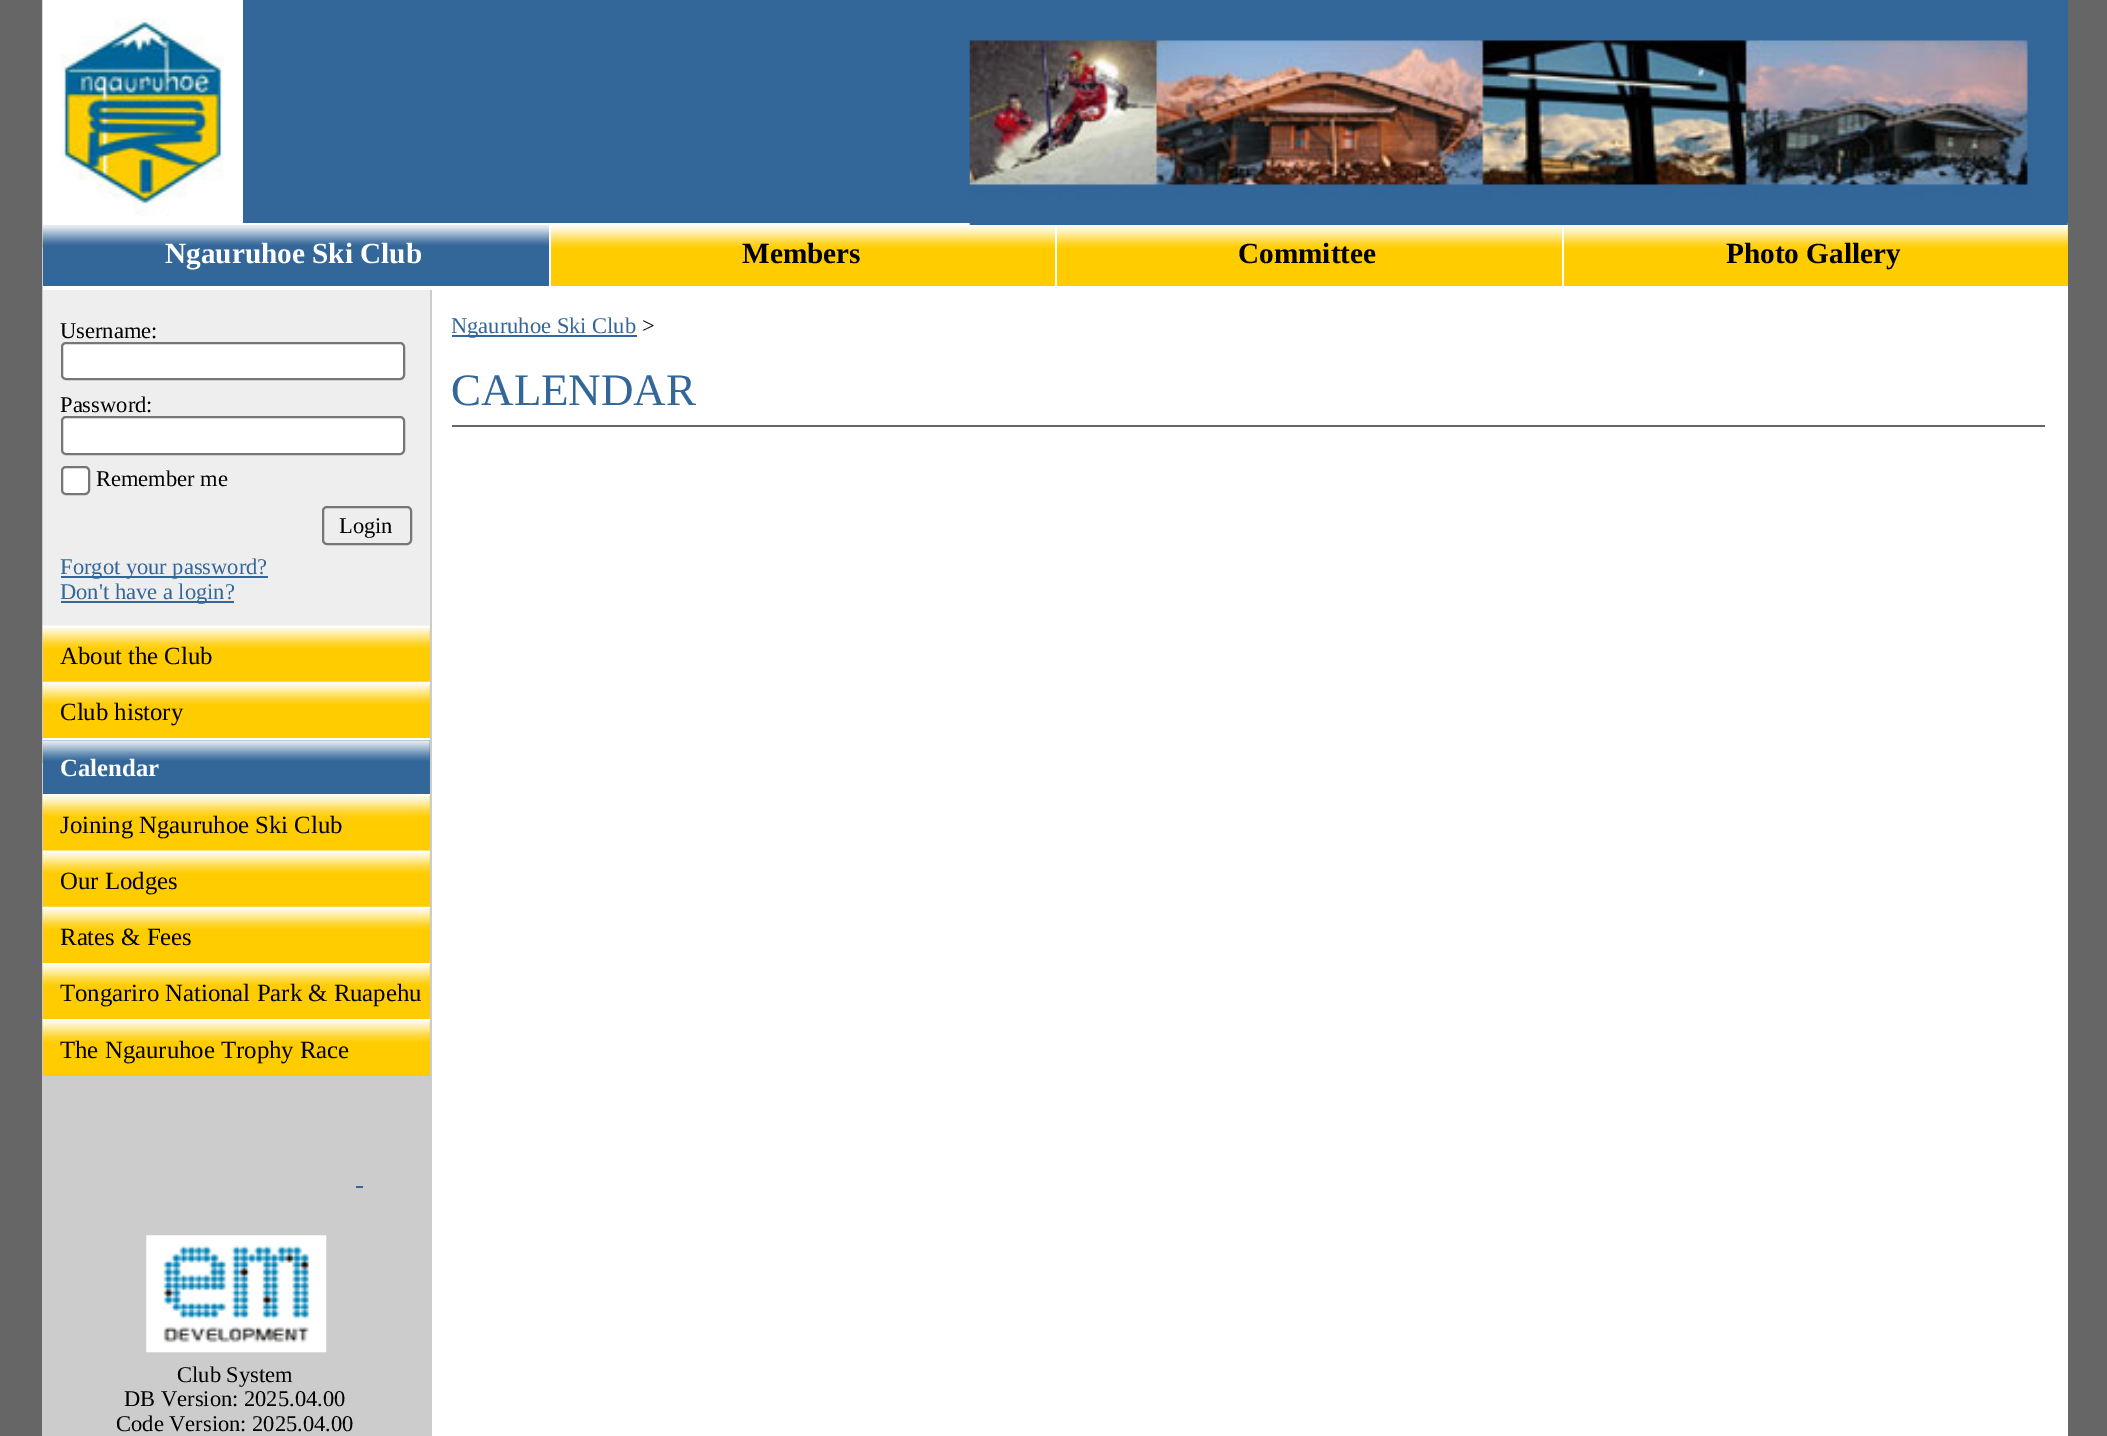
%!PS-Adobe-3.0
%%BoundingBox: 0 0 2107 1436
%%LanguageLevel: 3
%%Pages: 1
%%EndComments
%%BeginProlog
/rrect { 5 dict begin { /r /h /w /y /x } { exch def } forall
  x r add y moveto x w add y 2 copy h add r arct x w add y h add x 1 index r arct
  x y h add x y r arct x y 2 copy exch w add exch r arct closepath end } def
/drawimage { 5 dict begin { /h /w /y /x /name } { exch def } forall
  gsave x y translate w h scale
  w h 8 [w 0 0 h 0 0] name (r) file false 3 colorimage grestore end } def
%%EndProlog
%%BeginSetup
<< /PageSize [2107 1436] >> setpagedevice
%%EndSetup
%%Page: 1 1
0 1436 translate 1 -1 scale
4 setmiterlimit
0.4 setgray
0 0 2107 1436 rectfill
1 setgray
432 290 1636 1146 rectfill
0.8 setgray
42 0 390 1436 rectfill
0.2 0.4 0.6 setrgbcolor
243 0 1825 223 rectfill
1 setgray
243 223 1825 2 rectfill
(images/1.raw) 42 0 201 225 drawimage
(images/2.raw) 969 40 1099 185 drawimage
1 0.8 0 setrgbcolor
551 225 1517 61 rectfill
(images/3.raw) 42 225 2026 23 drawimage
1 setgray
43 288 2025 2 rectfill
43 286 2025 2 rectfill
0.2 0.4 0.6 setrgbcolor
43 247 506 39 rectfill
(images/4.raw) 42 225 507 23 drawimage
1 setgray
549 225 2 63 rectfill
1055 225 2 63 rectfill
1562 225 2 63 rectfill
0.933 setgray
43 290 387 336 rectfill
1 setgray
62 343 342 36 4 rrect gsave fill grestore
0.463 setgray
2 setlinewidth
stroke
1 setgray
62 417 342 37 4 rrect gsave fill grestore
0.463 setgray
stroke
1 setgray
62 467 27 27 4 rrect gsave fill grestore
0.463 setgray
stroke
323 507 88 37 4 rrect stroke
0.2 0.4 0.6 setrgbcolor
61 576 207 2 rectfill
61 601 173 2 rectfill
1 0.8 0 setrgbcolor
43 628 387 54 rectfill
(images/5.raw) 42 625 388 23 drawimage
1 setgray
43 626 387 2 rectfill
1 0.8 0 setrgbcolor
43 684 387 54 rectfill
(images/6.raw) 42 681 388 24 drawimage
1 setgray
43 682 387 2 rectfill
(images/7.raw) 42 738 1 23 drawimage
0.2 0.4 0.6 setrgbcolor
43 740 387 54 rectfill
(images/8.raw) 42 740 388 23 drawimage
1 setgray
43 738 387 2 rectfill
1 0.8 0 setrgbcolor
43 796 387 55 rectfill
(images/9.raw) 42 794 388 23 drawimage
1 setgray
43 794 387 2 rectfill
1 0.8 0 setrgbcolor
43 853 387 54 rectfill
(images/10.raw) 42 850 388 23 drawimage
1 setgray
43 851 387 2 rectfill
1 0.8 0 setrgbcolor
43 909 387 54 rectfill
(images/6.raw) 42 906 388 24 drawimage
1 setgray
43 907 387 2 rectfill
1 0.8 0 setrgbcolor
43 965 387 54 rectfill
(images/11.raw) 42 963 388 23 drawimage
1 setgray
43 963 387 2 rectfill
1 0.8 0 setrgbcolor
43 1021 387 55 rectfill
(images/9.raw) 42 1019 388 23 drawimage
1 setgray
43 1019 387 2 rectfill
0.2 0.4 0.6 setrgbcolor
356 1186 7 2 rectfill
(images/12.raw) 146 1235 181 118 drawimage
452 335 185 2 rectfill
0.4 setgray
452 425 1593 2 rectfill
/LiberationSerif-Bold [29.25 0 0 -29.25 0 0] selectfont
1 setgray
165 263 moveto (Ngauruhoe Ski Club) show
0 setgray
742 263 moveto (Members) show
1238 263 moveto (Committee) show
1726 263 moveto (Photo Gallery) show
/LiberationSerif-Regular [22.5 0 0 -22.5 0 0] selectfont
60 338 moveto (Username:) show
60 412 moveto (Password:) show
96 486 moveto (Remember me) show
339 533 moveto (Login) show
0.2 0.4 0.6 setrgbcolor
60 574 moveto (Forgot your password?) show
60 599 moveto (Don't have a login?) show
/LiberationSerif-Regular [24.75 0 0 -24.75 0 0] selectfont
0 setgray
60 664 moveto (About the Club) show
60 720 moveto (Club history) show
/LiberationSerif-Bold [24.75 0 0 -24.75 0 0] selectfont
1 setgray
60 776 moveto (Calendar) show
/LiberationSerif-Regular [24.75 0 0 -24.75 0 0] selectfont
0 setgray
60 833 moveto (Joining Ngauruhoe Ski Club) show
60 889 moveto (Our Lodges) show
60 945 moveto (Rates & Fees) show
60 1001 moveto (Tongariro National Park & Ruapehu) show
60 1058 moveto (The Ngauruhoe Trophy Race) show
/LiberationSerif-Regular [22.5 0 0 -22.5 0 0] selectfont
177 1382 moveto (Club System) show
124 1406 moveto (DB Version: 2025.04.00) show
116 1431 moveto (Code Version: 2025.04.00) show
0.2 0.4 0.6 setrgbcolor
451 333 moveto (Ngauruhoe Ski Club) show
0 setgray
642 333 moveto (>) show
/LiberationSerif-Regular [45 0 0 -45 0 0] selectfont
0.2 0.4 0.6 setrgbcolor
451 405 moveto (CALENDAR) show
showpage
%%EOF
